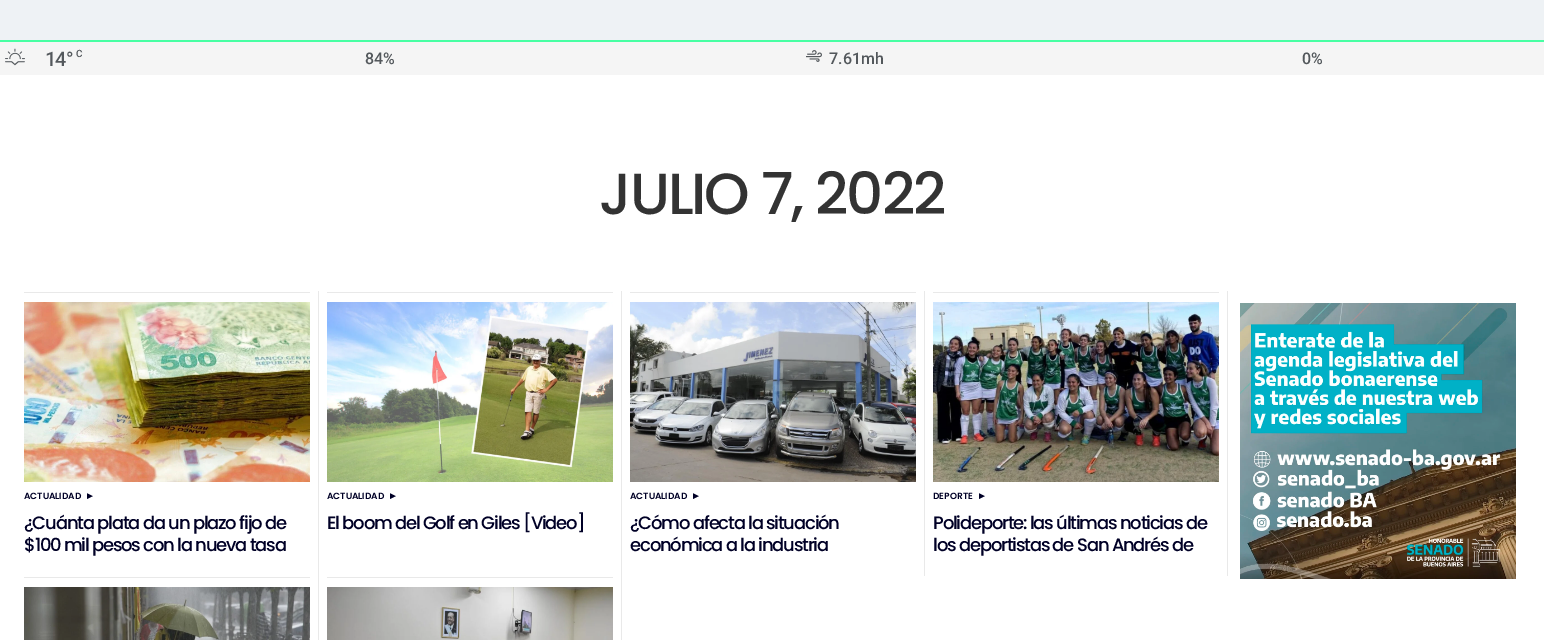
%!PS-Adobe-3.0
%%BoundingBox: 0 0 1544 640
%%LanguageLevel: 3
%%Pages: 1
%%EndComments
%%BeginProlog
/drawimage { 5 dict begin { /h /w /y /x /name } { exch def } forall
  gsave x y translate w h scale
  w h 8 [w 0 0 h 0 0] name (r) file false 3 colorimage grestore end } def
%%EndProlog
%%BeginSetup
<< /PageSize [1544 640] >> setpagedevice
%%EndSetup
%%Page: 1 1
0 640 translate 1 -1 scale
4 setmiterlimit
1 setgray
0 0 1544 640 rectfill
0.933 0.949 0.961 setrgbcolor
0 0 1544 40 rectfill
0.278 1 0.639 setrgbcolor
0 40 1544 2 rectfill
0.961 setgray
0 42 1544 33 rectfill
(images/1.raw) 5 48 20 18 drawimage
(images/2.raw) 806 50 16 12 drawimage
0.914 setgray
318 291 1 349 rectfill
24 292 286 1 rectfill
(images/3.raw) 24 302 286 180 drawimage
621 291 1 349 rectfill
327 292 286 1 rectfill
(images/4.raw) 327 302 286 180 drawimage
924 291 1 285 rectfill
630 292 286 1 rectfill
(images/5.raw) 630 302 286 180 drawimage
1227 291 1 285 rectfill
933 292 286 1 rectfill
(images/6.raw) 933 302 286 180 drawimage
24 577 286 1 rectfill
(images/7.raw) 24 587 286 53 drawimage
327 577 286 1 rectfill
(images/8.raw) 327 587 286 53 drawimage
(images/9.raw) 1240 303 276 276 drawimage
/Roboto-Medium [20 0 0 -20 0 0] selectfont
0.325 0.345 0.361 setrgbcolor
45 66 moveto -1 0 (14°) ashow
/Roboto-Medium [10 0 0 -10 0 0] selectfont
76 57 moveto -1 0 (C) ashow
/Roboto-Medium [16 0 0 -16 0 0] selectfont
365 64 moveto (84%) show
829 64 moveto (7.61mh) show
1302 64 moveto (0%) show
/Poppins-Medium [58 0 0 -58 0 0] selectfont
0.2 setgray
599 214 moveto -2.1 0 (JULIO 7, 2022) ashow
/Poppins-SemiBold [9 0 0 -9 0 0] selectfont
0 0 0.149 setrgbcolor
24 499 moveto (ACTUALIDAD) show
/LiberationSans-Regular [10 0 0 -10 0 0] selectfont
85 499 moveto (►) show
/Poppins-Medium [18 0 0 -18 0 0] selectfont
24 529 moveto -1.2 0 (¿Cuánta plata da un plazo fijo de) ashow
24 551 moveto -1.2 0 ($100 mil pesos con la nueva tasa) ashow
/Poppins-SemiBold [9 0 0 -9 0 0] selectfont
327 499 moveto (ACTUALIDAD) show
/LiberationSans-Regular [10 0 0 -10 0 0] selectfont
388 499 moveto (►) show
/Poppins-Medium [18 0 0 -18 0 0] selectfont
327 529 moveto -1.2 0 (El boom del Golf en Giles [Video]) ashow
/Poppins-SemiBold [9 0 0 -9 0 0] selectfont
630 499 moveto (ACTUALIDAD) show
/LiberationSans-Regular [10 0 0 -10 0 0] selectfont
691 499 moveto (►) show
/Poppins-Medium [18 0 0 -18 0 0] selectfont
630 529 moveto -1.2 0 (¿Cómo afecta la situación) ashow
630 551 moveto -1.2 0 (económica a la industria) ashow
/Poppins-SemiBold [9 0 0 -9 0 0] selectfont
933 499 moveto (DEPORTE) show
/LiberationSans-Regular [10 0 0 -10 0 0] selectfont
977 499 moveto (►) show
/Poppins-Medium [18 0 0 -18 0 0] selectfont
933 529 moveto -1.2 0 (Polideporte: las últimas noticias de) ashow
933 551 moveto -1.2 0 (los deportistas de San Andrés de) ashow
showpage
%%EOF
